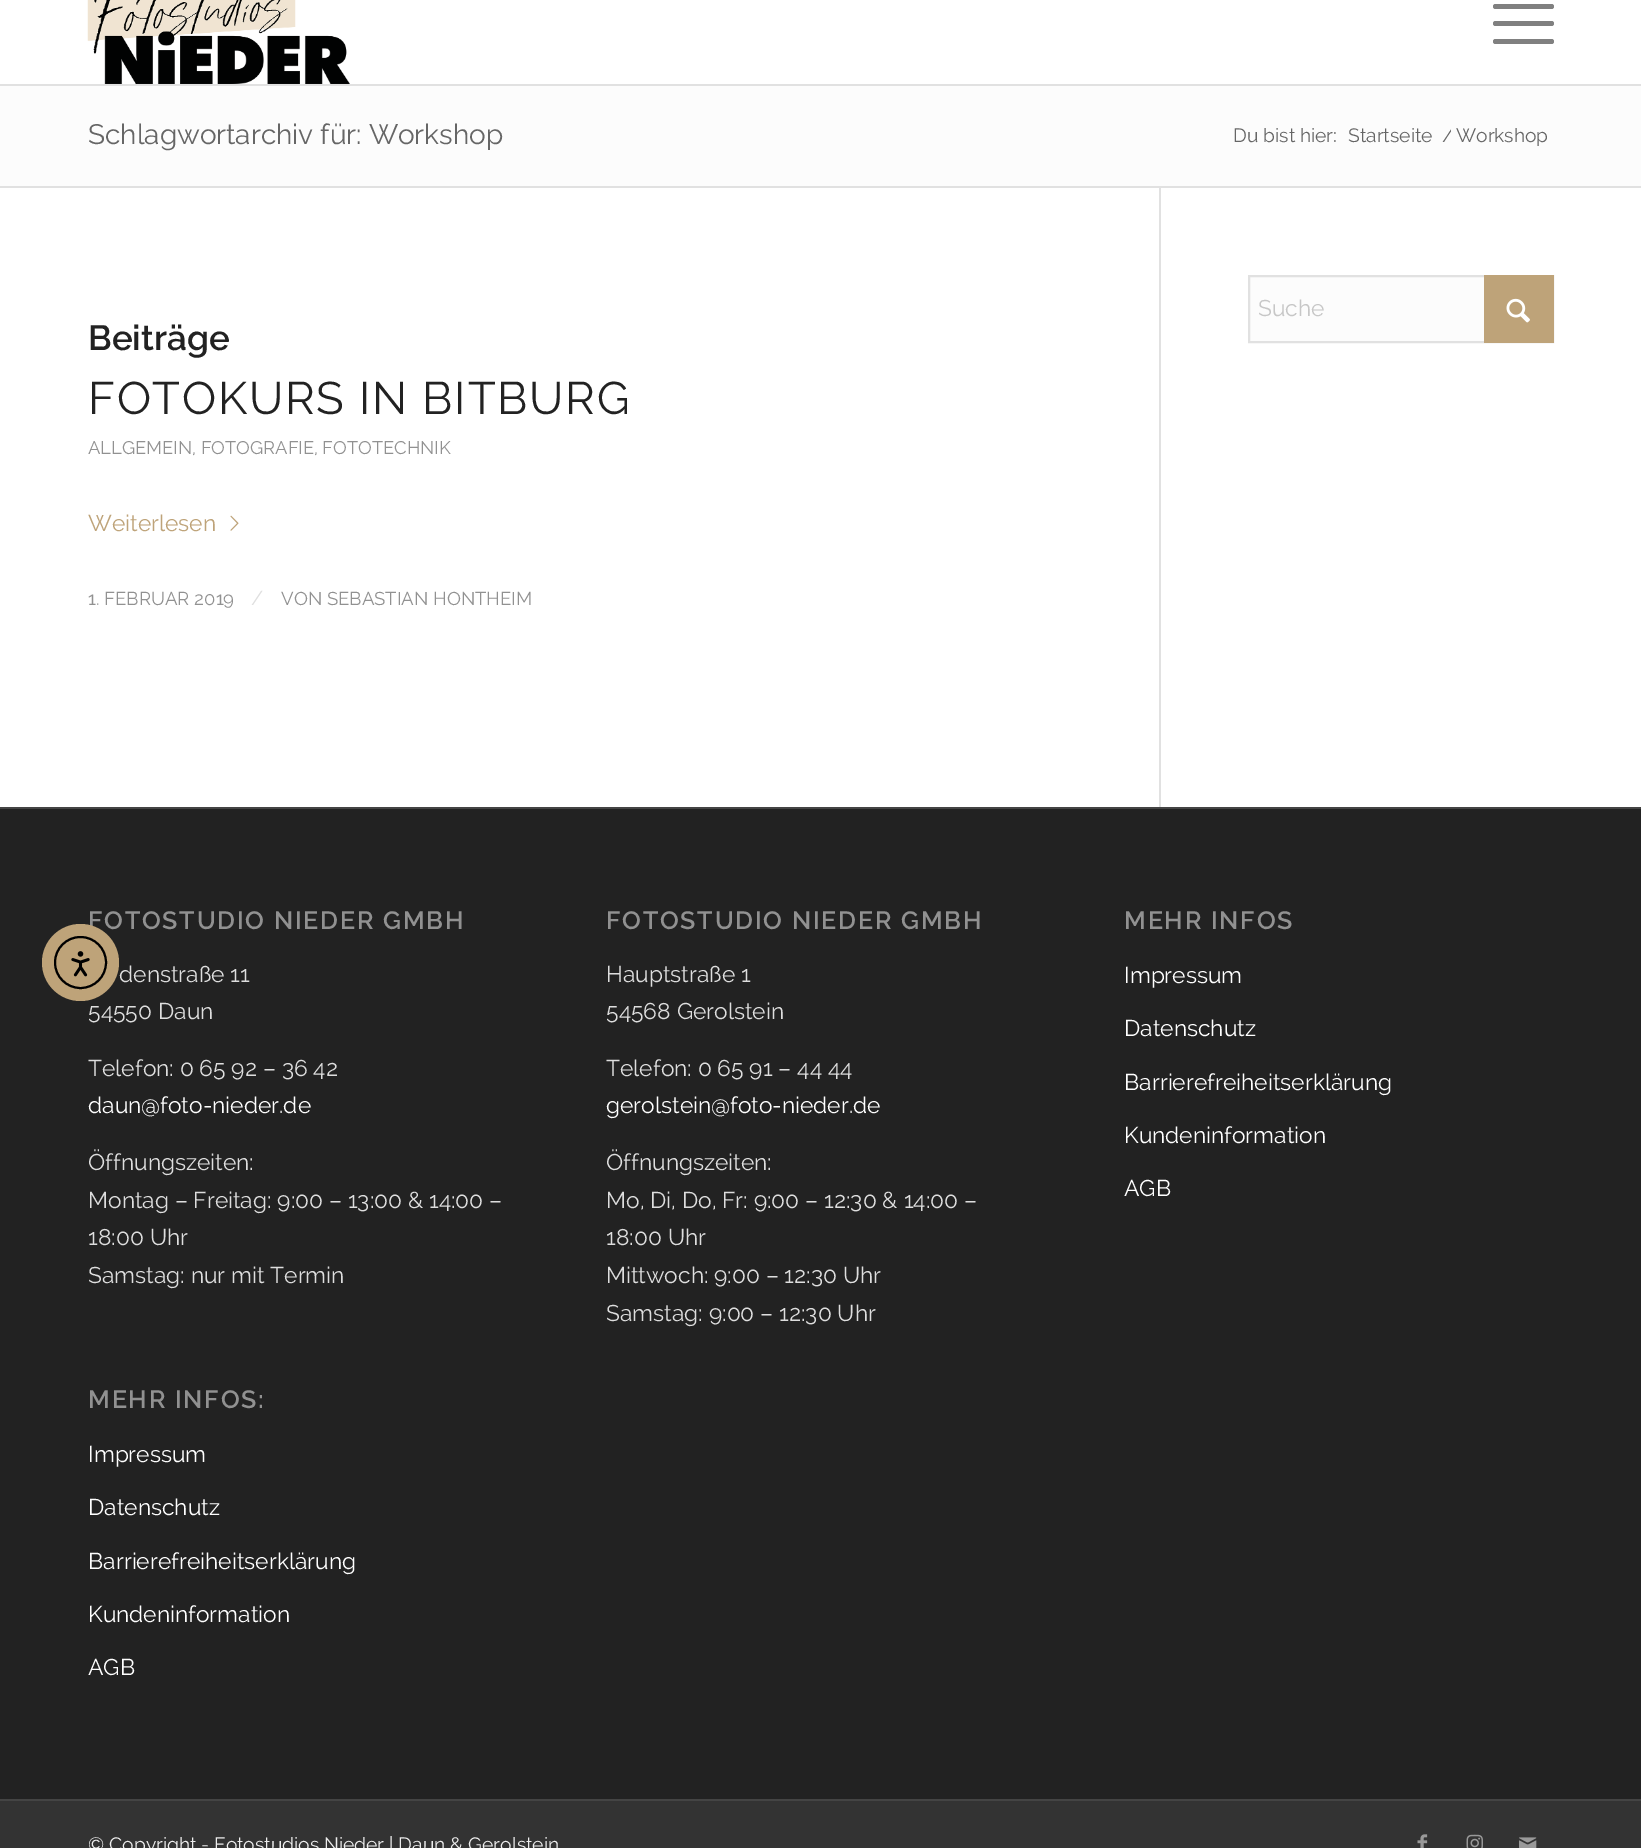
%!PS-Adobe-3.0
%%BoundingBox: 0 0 1641 1848
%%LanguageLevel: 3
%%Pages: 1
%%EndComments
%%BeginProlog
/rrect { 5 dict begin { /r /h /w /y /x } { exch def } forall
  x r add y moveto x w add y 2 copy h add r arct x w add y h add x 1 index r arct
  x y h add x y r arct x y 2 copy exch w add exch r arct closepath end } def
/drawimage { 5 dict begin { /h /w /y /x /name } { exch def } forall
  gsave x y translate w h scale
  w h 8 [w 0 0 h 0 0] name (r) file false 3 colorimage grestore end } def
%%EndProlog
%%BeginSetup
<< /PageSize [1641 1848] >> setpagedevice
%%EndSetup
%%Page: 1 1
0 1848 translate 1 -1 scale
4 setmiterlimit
1 setgray
0 0 1641 1848 rectfill
0.882 setgray
0 84 1641 2 rectfill
(images/2.raw) 87 0 263 84 drawimage
0.502 setgray
1493 21 61 5 2.5 rrect fill
1493 4 61 5 2.5 rrect fill
1493 39 61 5 2.5 rrect fill
0.988 setgray
0 86 1641 100 rectfill
0.882 setgray
0 186 1641 2 rectfill
0.988 setgray
1250 277 234 64 rectfill
0.882 setgray
2 setlinewidth
1249 276 304 66 rectstroke
0.745 0.639 0.475 setrgbcolor
1484 275 70 68 rectfill
(images/3.raw) 1506 298 24 25 drawimage
0.882 setgray
1159 187 2 620 rectfill
(images/4.raw) 230 515 9 16 drawimage
0.133 setgray
0 809 1641 990 rectfill
0.267 setgray
0 807 1641 2 rectfill
0.2 setgray
0 1801 1641 47 rectfill
0.267 setgray
0 1799 1641 2 rectfill
(images/5.raw) 1417 1834 11 14 drawimage
(images/6.raw) 1466 1834 17 14 drawimage
(images/7.raw) 1519 1837 18 11 drawimage
/Raleway-Regular [28 0 0 -28 0 0] selectfont
0.4 setgray
88 144 moveto (Schlagwortarchiv für: Workshop) show
/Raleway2-Regular [19.25 0 0 -19.25 0 0] selectfont
1233 142 moveto (Du bist hier:) show
1348 142 moveto (Startseite) show
gsave
1437 123 14 26 rectclip
1442 142 moveto (/) show
grestore
1456 142 moveto (Workshop) show
/Raleway2-Regular [22.75 0 0 -22.75 0 0] selectfont
0.78 setgray
1258 316 moveto (Suche) show
/Raleway-SemiBold [35 0 0 -35 0 0] selectfont
0.133 setgray
88 350 moveto (Beiträge) show
/Raleway-Regular [45.5 0 0 -45.5 0 0] selectfont
88 414 moveto 1.75 0 (FOTOKURS IN BITBURG) ashow
/Raleway2-Regular [18.25 0 0 -18.25 0 0] selectfont
0.569 setgray
88 454 moveto (ALLGEMEIN, FOTOGRAFIE, FOTOTECHNIK) show
/Raleway2-Regular [22.75 0 0 -22.75 0 0] selectfont
0.745 0.639 0.475 setrgbcolor
88 531 moveto (Weiterlesen) show
/Raleway2-Regular [18.5 0 0 -18.5 0 0] selectfont
0.569 setgray
88 605 moveto (1. FEBRUAR 2019) show
/Raleway2-Regular [20 0 0 -20 0 0] selectfont
0.871 setgray
251 605 moveto (/) show
/Raleway2-Regular [18.5 0 0 -18.5 0 0] selectfont
0.569 setgray
281 605 moveto (VON SEBASTIAN HONTHEIM) show
/Raleway-SemiBold [25 0 0 -25 0 0] selectfont
88 929 moveto 1.75 0 (FOTOSTUDIO NIEDER GMBH) ashow
0.745 0.639 0.475 setrgbcolor
newpath 80.5 962.5 38.5 0 360 arc closepath fill
0 setgray
newpath 80.5 962.5 25.5 0 360 arc closepath stroke
(images/1.raw) 71 951 19 26 drawimage
/Raleway2-Regular [22.75 0 0 -22.75 0 0] selectfont
0.871 setgray
119 982 moveto (denstraße 11) show
88 1019 moveto (54550 Daun) show
88 1076 moveto (Telefon: 0 65 92 – 36 42) show
1 setgray
88 1113 moveto (daun@foto-nieder.de) show
0.871 setgray
88 1170 moveto (Öffnungszeiten:) show
88 1208 moveto (Montag – Freitag: 9:00 – 13:00 & 14:00 –) show
88 1245 moveto (18:00 Uhr) show
88 1283 moveto (Samstag: nur mit Termin) show
/Raleway-SemiBold [25 0 0 -25 0 0] selectfont
0.569 setgray
88 1408 moveto 1.75 0 (MEHR INFOS:) ashow
/Raleway2-Regular [22.75 0 0 -22.75 0 0] selectfont
1 setgray
88 1462 moveto (Impressum) show
88 1515 moveto (Datenschutz) show
88 1569 moveto (Barrierefreiheitserklärung) show
88 1622 moveto (Kundeninformation) show
88 1675 moveto (AGB) show
/Raleway-SemiBold [25 0 0 -25 0 0] selectfont
0.569 setgray
606 929 moveto 1.75 0 (FOTOSTUDIO NIEDER GMBH) ashow
/Raleway2-Regular [22.75 0 0 -22.75 0 0] selectfont
0.871 setgray
606 982 moveto (Hauptstraße 1) show
606 1019 moveto (54568 Gerolstein) show
606 1076 moveto (Telefon: 0 65 91 – 44 44) show
1 setgray
606 1113 moveto (gerolstein@foto-nieder.de) show
0.871 setgray
606 1170 moveto (Öffnungszeiten:) show
606 1208 moveto (Mo, Di, Do, Fr: 9:00 – 12:30 & 14:00 –) show
606 1245 moveto (18:00 Uhr) show
606 1283 moveto (Mittwoch: 9:00 – 12:30 Uhr) show
606 1321 moveto (Samstag: 9:00 – 12:30 Uhr) show
/Raleway-SemiBold [25 0 0 -25 0 0] selectfont
0.569 setgray
1124 929 moveto 1.75 0 (MEHR INFOS) ashow
/Raleway2-Regular [22.75 0 0 -22.75 0 0] selectfont
1 setgray
1124 983 moveto (Impressum) show
1124 1036 moveto (Datenschutz) show
1124 1090 moveto (Barrierefreiheitserklärung) show
1124 1143 moveto (Kundeninformation) show
1124 1196 moveto (AGB) show
/Raleway2-Regular [19.25 0 0 -19.25 0 0] selectfont
0.933 setgray
88 1851 moveto (© Copyright - Fotostudios Nieder | Daun & Gerolstein) show
showpage
%%EOF
